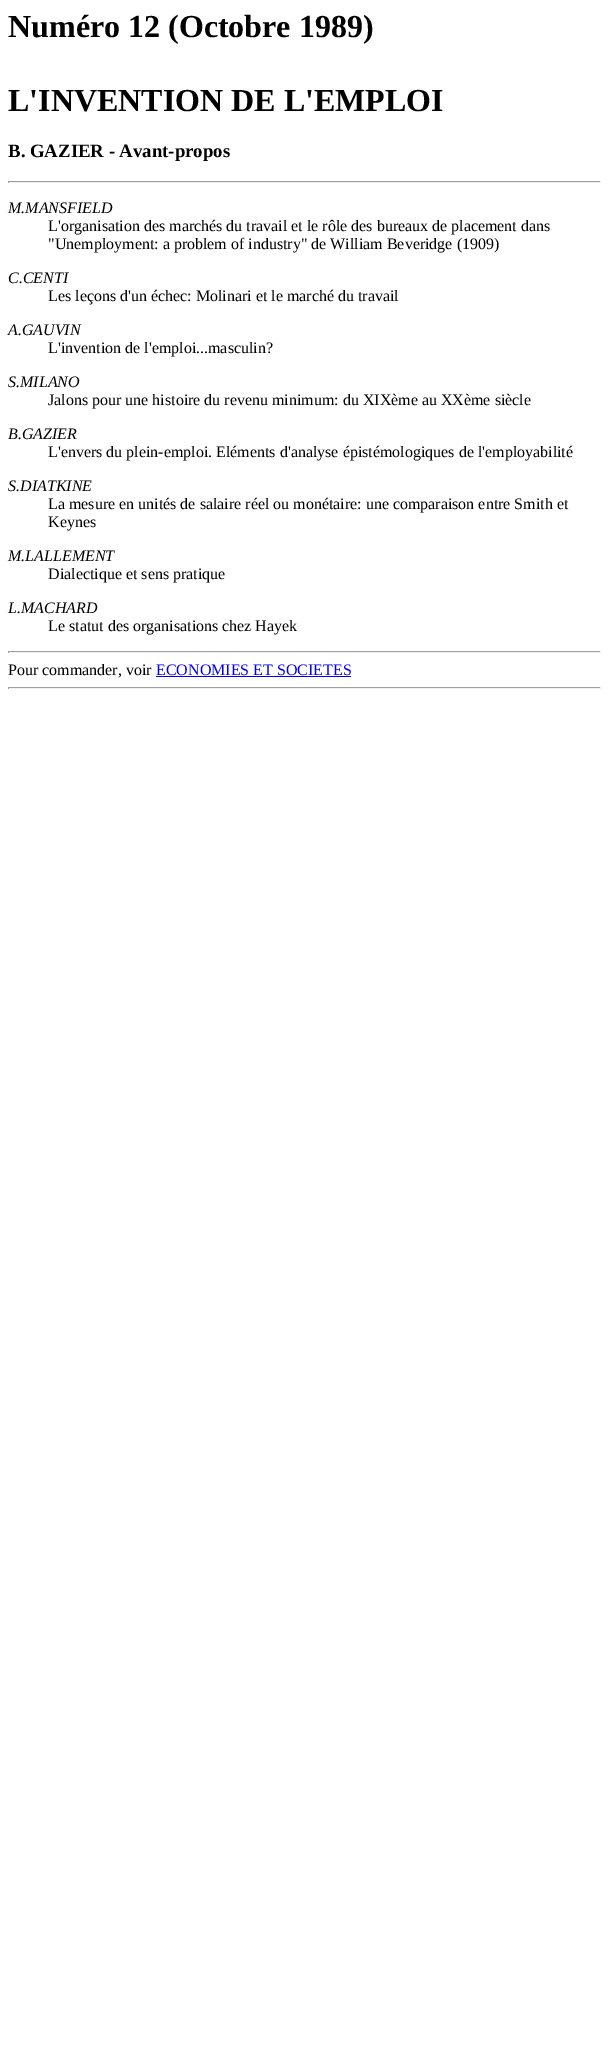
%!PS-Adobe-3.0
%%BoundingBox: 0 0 609 2051
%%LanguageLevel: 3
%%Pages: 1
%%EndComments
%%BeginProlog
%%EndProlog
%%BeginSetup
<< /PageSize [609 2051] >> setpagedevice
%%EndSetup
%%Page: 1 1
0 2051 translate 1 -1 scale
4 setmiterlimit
1 setgray
0 0 609 2051 rectfill
0.624 setgray
8 181 593 1 rectfill
0.933 setgray
600 181 1 2 rectfill
8 182 593 1 rectfill
0.624 setgray
8 181 1 2 rectfill
8 651 593 1 rectfill
0.933 setgray
600 651 1 2 rectfill
8 652 593 1 rectfill
0.624 setgray
8 651 1 2 rectfill
0 0 0.933 setrgbcolor
156 676 195 1 rectfill
0.624 setgray
8 687 593 1 rectfill
0.933 setgray
600 687 1 2 rectfill
8 688 593 1 rectfill
0.624 setgray
8 687 1 2 rectfill
/LiberationSerif-Bold [32 0 0 -32 0 0] selectfont
0 setgray
8 37 moveto (Numéro 12 \(Octobre 1989\)) show
8 111 moveto (L'INVENTION DE L'EMPLOI) show
/LiberationSerif-Bold [18.75 0 0 -18.75 0 0] selectfont
8 157 moveto (B. GAZIER - Avant-propos) show
/LiberationSerif-Italic [16 0 0 -16 0 0] selectfont
8 213 moveto (M.MANSFIELD) show
/LiberationSerif-Regular [16 0 0 -16 0 0] selectfont
48 231 moveto (L'organisation des marchés du travail et le rôle des bureaux de placement dans) show
48 249 moveto ("Unemployment: a problem of industry" de William Beveridge \(1909\)) show
/LiberationSerif-Italic [16 0 0 -16 0 0] selectfont
8 283 moveto (C.CENTI) show
/LiberationSerif-Regular [16 0 0 -16 0 0] selectfont
48 301 moveto (Les leçons d'un échec: Molinari et le marché du travail) show
/LiberationSerif-Italic [16 0 0 -16 0 0] selectfont
8 335 moveto (A.GAUVIN) show
/LiberationSerif-Regular [16 0 0 -16 0 0] selectfont
48 353 moveto (L'invention de l'emploi...masculin?) show
/LiberationSerif-Italic [16 0 0 -16 0 0] selectfont
8 387 moveto (S.MILANO) show
/LiberationSerif-Regular [16 0 0 -16 0 0] selectfont
48 405 moveto (Jalons pour une histoire du revenu minimum: du XIXème au XXème siècle) show
/LiberationSerif-Italic [16 0 0 -16 0 0] selectfont
8 439 moveto (B.GAZIER) show
/LiberationSerif-Regular [16 0 0 -16 0 0] selectfont
48 457 moveto (L'envers du plein-emploi. Eléments d'analyse épistémologiques de l'employabilité) show
/LiberationSerif-Italic [16 0 0 -16 0 0] selectfont
8 491 moveto (S.DIATKINE) show
/LiberationSerif-Regular [16 0 0 -16 0 0] selectfont
48 509 moveto (La mesure en unités de salaire réel ou monétaire: une comparaison entre Smith et) show
48 527 moveto (Keynes) show
/LiberationSerif-Italic [16 0 0 -16 0 0] selectfont
8 561 moveto (M.LALLEMENT) show
/LiberationSerif-Regular [16 0 0 -16 0 0] selectfont
48 579 moveto (Dialectique et sens pratique) show
/LiberationSerif-Italic [16 0 0 -16 0 0] selectfont
8 613 moveto (L.MACHARD) show
/LiberationSerif-Regular [16 0 0 -16 0 0] selectfont
48 631 moveto (Le statut des organisations chez Hayek) show
8 675 moveto (Pour commander, voir) show
0 0 0.933 setrgbcolor
156 675 moveto (ECONOMIES ET SOCIETES) show
showpage
%%EOF
